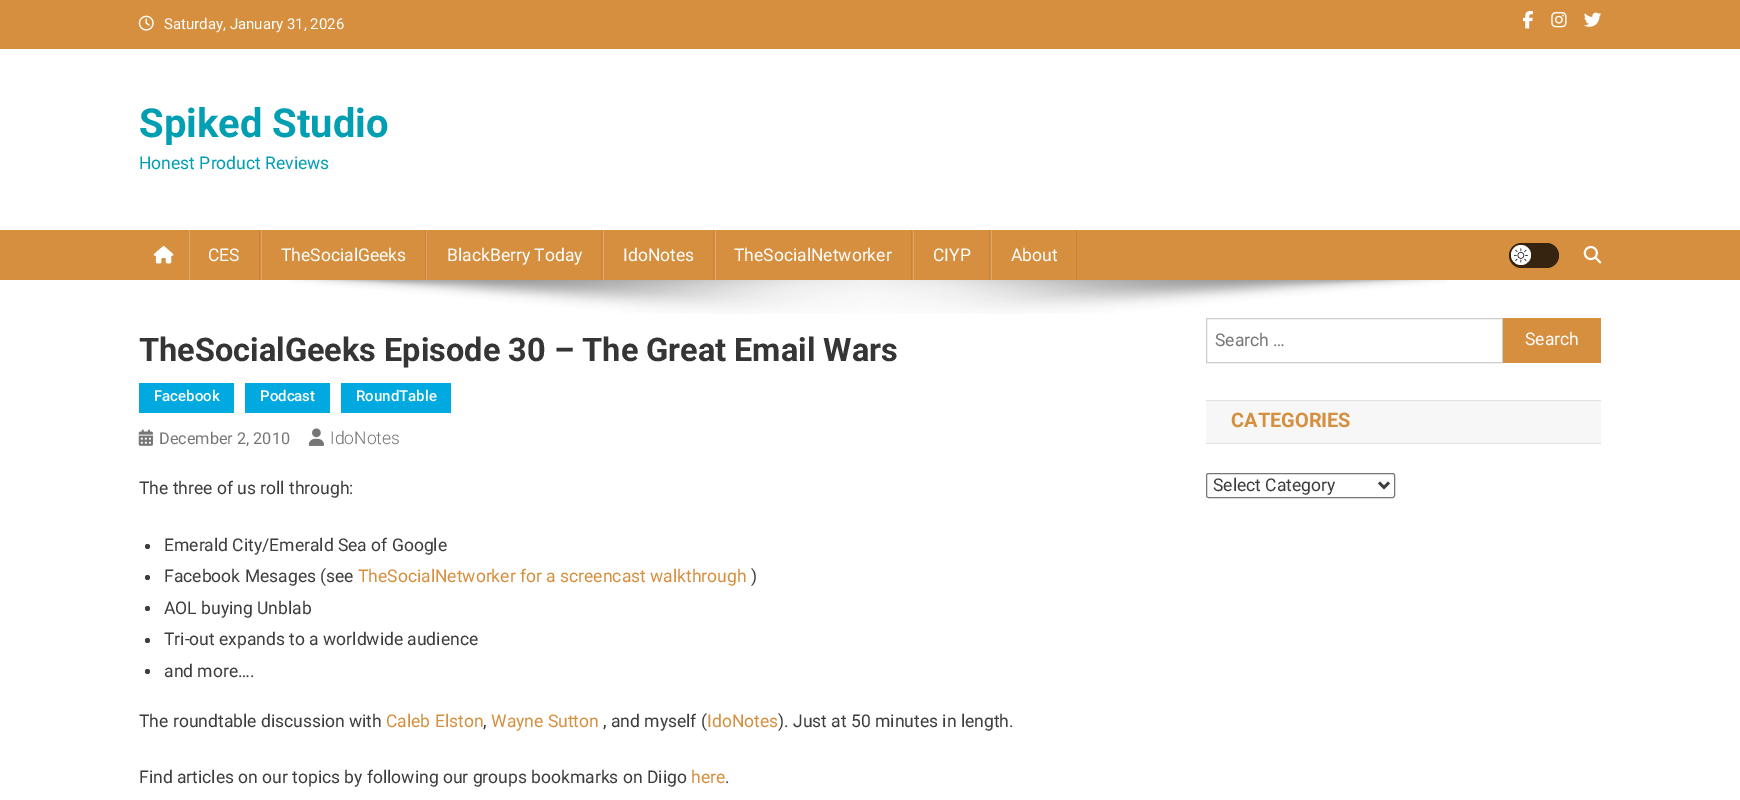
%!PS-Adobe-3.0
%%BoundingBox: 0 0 1740 800
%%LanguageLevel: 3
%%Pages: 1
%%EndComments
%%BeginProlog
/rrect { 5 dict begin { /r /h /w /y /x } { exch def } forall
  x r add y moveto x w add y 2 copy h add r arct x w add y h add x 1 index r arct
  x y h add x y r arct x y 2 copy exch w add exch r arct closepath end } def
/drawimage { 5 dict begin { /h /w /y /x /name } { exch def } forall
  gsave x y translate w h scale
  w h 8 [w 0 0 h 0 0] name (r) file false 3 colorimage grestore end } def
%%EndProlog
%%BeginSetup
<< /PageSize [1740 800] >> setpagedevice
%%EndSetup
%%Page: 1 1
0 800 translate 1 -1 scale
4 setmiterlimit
1 setgray
0 0 1740 800 rectfill
0.839 0.561 0.243 setrgbcolor
0 0 1740 49 rectfill
(images/1.raw) 138 15 16 16 drawimage
(images/2.raw) 1522 10 11 19 drawimage
(images/3.raw) 1551 12 16 16 drawimage
(images/4.raw) 1584 12 18 15 drawimage
0 230 1740 50 rectfill
(images/5.raw) 153 246 21 18 drawimage
0.773 0.518 0.224 setrgbcolor
259 230 1 50 rectfill
0.871 0.647 0.396 setrgbcolor
189 230 1 50 rectfill
0.773 0.518 0.224 setrgbcolor
425 230 1 50 rectfill
0.871 0.647 0.396 setrgbcolor
261 230 1 50 rectfill
0.773 0.518 0.224 setrgbcolor
601 230 1 50 rectfill
0.871 0.647 0.396 setrgbcolor
426 230 1 50 rectfill
0.773 0.518 0.224 setrgbcolor
713 230 1 50 rectfill
0.871 0.647 0.396 setrgbcolor
603 230 1 50 rectfill
0.773 0.518 0.224 setrgbcolor
911 230 1 50 rectfill
0.871 0.647 0.396 setrgbcolor
715 230 1 50 rectfill
0.773 0.518 0.224 setrgbcolor
989 230 1 50 rectfill
0.871 0.647 0.396 setrgbcolor
913 230 1 50 rectfill
0.773 0.518 0.224 setrgbcolor
1076 230 1 50 rectfill
0.871 0.647 0.396 setrgbcolor
991 230 1 50 rectfill
0.212 0.141 0.063 setrgbcolor
1509 243 50 25 12.5 rrect fill
1 setgray
newpath 1521 255 10 0 360 arc closepath fill
(images/6.raw) 1514 248 14 15 drawimage
(images/7.raw) 1583 245 19 19 drawimage
(images/8.raw) 291 280 1156 34 drawimage
0 0.663 0.878 setrgbcolor
139 383 95 30 rectfill
245 383 85 30 rectfill
341 383 110 30 rectfill
(images/9.raw) 138 429 15 17 drawimage
(images/10.raw) 308 428 16 18 drawimage
0.239 setgray
newpath 147.5 546.5 2.5 0 360 arc closepath fill
newpath 147.5 577.5 2.5 0 360 arc closepath fill
newpath 147.5 608.5 2.5 0 360 arc closepath fill
newpath 147.5 640.5 2.5 0 360 arc closepath fill
newpath 147.5 671.5 2.5 0 360 arc closepath fill
0.8 setgray
1206.5 318.5 296 44 rectstroke
0.839 0.561 0.243 setrgbcolor
1503 318 98 45 rectfill
0.969 setgray
1206 401 395 42 rectfill
0.882 setgray
1206 400 395 1 rectfill
1206 443 395 1 rectfill
0.463 setgray
1206.5 473.5 188 24 2 rrect stroke
0.239 setgray
2.5 setlinewidth
newpath 1379 482.5 moveto 1384 487.5 lineto 1389 482.5 lineto stroke
/Roboto-Regular [15 0 0 -15 0 0] selectfont
1 setgray
164 29 moveto (Saturday, January 31, 2026) show
/Roboto-Bold [40 0 0 -40 0 0] selectfont
0.008 0.624 0.698 setrgbcolor
139 137 moveto (Spiked Studio) show
/Roboto-Regular [17.5 0 0 -17.5 0 0] selectfont
139 169 moveto (Honest Product Reviews) show
1 setgray
208 261 moveto (CES) show
281 261 moveto (TheSocialGeeks) show
447 261 moveto (BlackBerry Today) show
623 261 moveto (IdoNotes) show
734 261 moveto (TheSocialNetworker) show
933 261 moveto (CIYP) show
1011 261 moveto (About) show
/Roboto-Bold [32.5 0 0 -32.5 0 0] selectfont
0.208 setgray
139 361 moveto (TheSocialGeeks Episode 30 – The Great Email Wars) show
/Roboto-Medium [15 0 0 -15 0 0] selectfont
1 setgray
154 401 moveto (Facebook) show
260 401 moveto (Podcast) show
356 401 moveto (RoundTable) show
/Roboto-Regular [16.25 0 0 -16.25 0 0] selectfont
0.463 setgray
159 444 moveto (December 2, 2010) show
/Roboto-Light [17.5 0 0 -17.5 0 0] selectfont
330 444 moveto (IdoNotes) show
/Roboto-Regular [17.5 0 0 -17.5 0 0] selectfont
0.239 setgray
139 494 moveto (The three of us roll through:) show
164 551 moveto (Emerald City/Emerald Sea of Google) show
164 582 moveto (Facebook Mesages \(see) show
0.839 0.561 0.243 setrgbcolor
358 582 moveto (TheSocialNetworker for a screencast walkthrough) show
0.239 setgray
751 582 moveto (\)) show
164 614 moveto (AOL buying Unblab) show
164 645 moveto (Tri-out expands to a worldwide audience) show
164 677 moveto (and more….) show
139 727 moveto (The roundtable discussion with) show
0.839 0.561 0.243 setrgbcolor
386 727 moveto (Caleb Elston) show
0.239 setgray
483 727 moveto (,) show
0.839 0.561 0.243 setrgbcolor
491 727 moveto (Wayne Sutton) show
0.239 setgray
603 727 moveto (, and myself \() show
0.839 0.561 0.243 setrgbcolor
707 727 moveto (IdoNotes) show
0.239 setgray
778 727 moveto (\). Just at 50 minutes in length.) show
139 783 moveto (Find articles on our topics by following our groups bookmarks on Diigo) show
0.839 0.561 0.243 setrgbcolor
691 783 moveto (here) show
0.239 setgray
725 783 moveto (.) show
0.463 setgray
1215 346 moveto (Search …) show
1 setgray
1525 345 moveto (Search) show
/Roboto-Bold [20 0 0 -20 0 0] selectfont
0.839 0.561 0.243 setrgbcolor
1231 427 moveto (CATEGORIES) show
/Roboto-Regular [17.5 0 0 -17.5 0 0] selectfont
0.239 setgray
1213 491 moveto (Select Category) show
showpage
%%EOF
